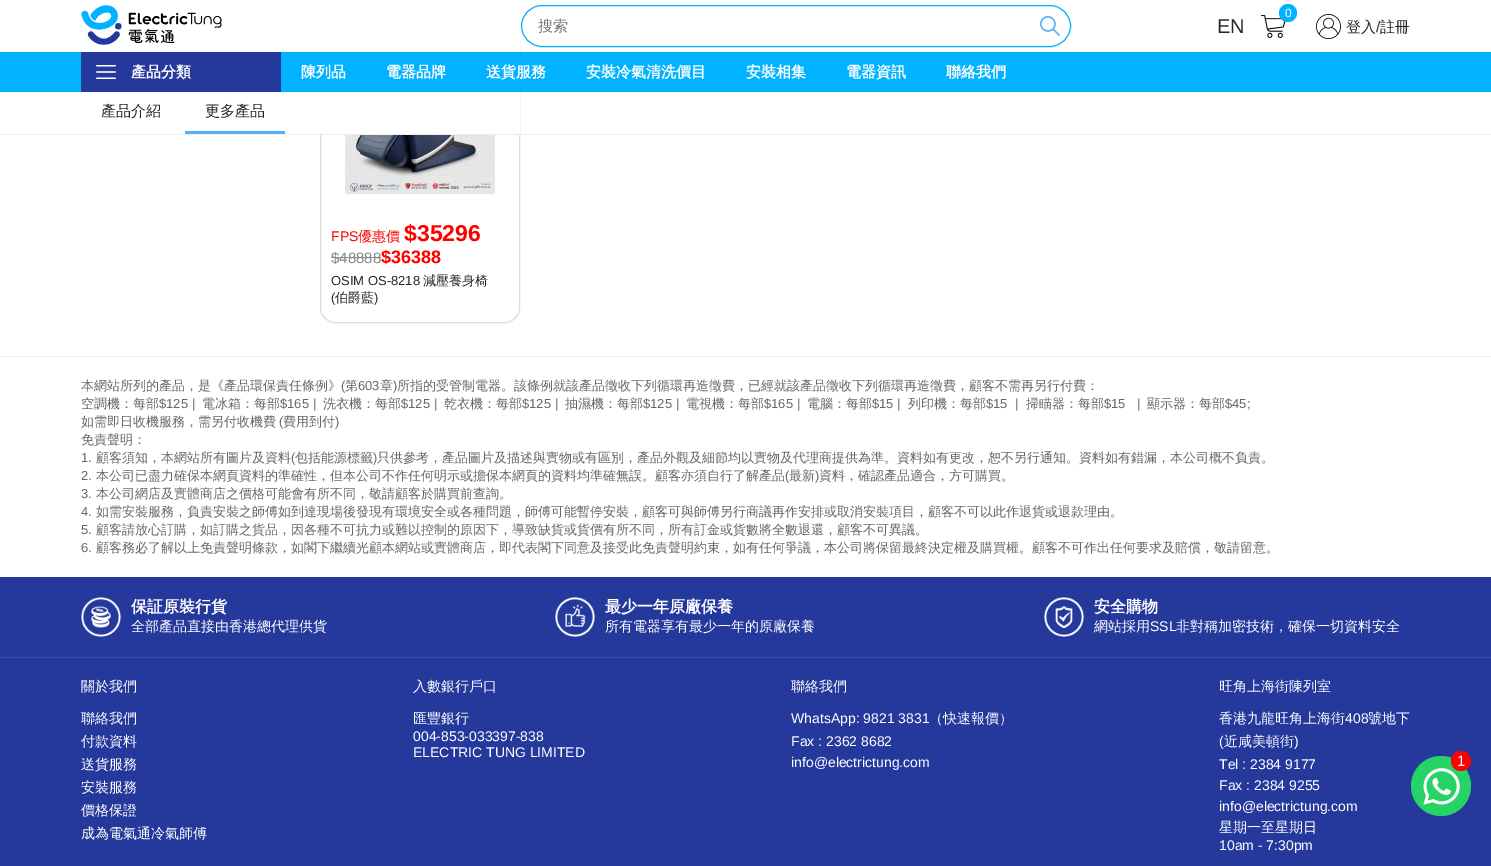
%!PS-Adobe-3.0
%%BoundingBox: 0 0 1491 866
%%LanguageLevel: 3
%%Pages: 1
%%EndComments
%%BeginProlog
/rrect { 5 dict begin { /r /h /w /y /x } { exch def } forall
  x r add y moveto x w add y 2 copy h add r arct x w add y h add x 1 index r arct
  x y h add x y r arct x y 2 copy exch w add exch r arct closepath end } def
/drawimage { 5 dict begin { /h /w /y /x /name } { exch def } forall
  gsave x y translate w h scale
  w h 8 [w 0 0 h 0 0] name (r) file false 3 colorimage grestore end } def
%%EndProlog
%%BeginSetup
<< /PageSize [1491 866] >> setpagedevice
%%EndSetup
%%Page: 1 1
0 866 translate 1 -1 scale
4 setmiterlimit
1 setgray
0 0 1491 866 rectfill
0.867 setgray
320.5 26.5 199 296 14.5 rrect stroke
1 setgray
320 26 200 26 rectfill
(images/1.raw) 81 5 141 40 drawimage
0.004 0.698 1 setrgbcolor
521.5 5.5 549 41 20.5 rrect stroke
(images/2.raw) 1040 16 20 20 drawimage
(images/3.raw) 1261 15 25 23 drawimage
newpath 1288 13 9 0 360 arc closepath fill
(images/4.raw) 1316 14 25 25 drawimage
0 52 1491 40 rectfill
0.145 0.224 0.612 setrgbcolor
81 52 200 40 rectfill
(images/5.raw) 96 65 20 14 drawimage
1 setgray
320 92 200 42 rectfill
0.933 setgray
0 134 1491 1 rectfill
0.325 0.69 0.984 setrgbcolor
185 131 100 3 rectfill
(images/6.raw) 345 135 150 59 drawimage
0.533 setgray
331 257 50 1 rectfill
0.145 0.224 0.612 setrgbcolor
0 577 1491 289 rectfill
0.933 setgray
0 356 1491 1 rectfill
0.231 0.302 0.651 setrgbcolor
0 657 1491 1 rectfill
(images/7.raw) 81 597 40 40 drawimage
(images/8.raw) 555 597 40 40 drawimage
(images/9.raw) 1044 597 40 40 drawimage
0.145 0.827 0.4 setrgbcolor
newpath 1441 786 30 0 360 arc closepath fill
(images/10.raw) 1423 768 37 37 drawimage
1 0 0 setrgbcolor
newpath 1461 761 10 0 360 arc closepath fill
gsave
538 17 476 19 rectclip
/WenQuanYiZenHei-Medium [15 0 0 -15 0 0] selectfont
0.459 setgray
538 31 moveto (搜索) show
grestore
/LiberationSans-Regular [12 0 0 -12 0 0] selectfont
1 setgray
1285 17 moveto (0) show
/LiberationSans-Regular [20 0 0 -20 0 0] selectfont
0.149 setgray
1217 33 moveto (EN) show
/WenQuanYiZenHei-Medium [15 0 0 -15 0 0] selectfont
1346 32 moveto (登入) show
/LiberationSans-Regular [15 0 0 -15 0 0] selectfont
1376 32 moveto (/) show
/WenQuanYiZenHei-Medium [15 0 0 -15 0 0] selectfont
1380 32 moveto (註冊) show
/WenQuanYiZenHei-Bold [15 0 0 -15 0 0] selectfont
1 setgray
131 77 moveto (產品分類) show
301 77 moveto (陳列品) show
386 77 moveto (電器品牌) show
486 77 moveto (送貨服務) show
586 77 moveto (安裝冷氣清洗價目) show
746 77 moveto (安裝相集) show
846 77 moveto (電器資訊) show
946 77 moveto (聯絡我們) show
/WenQuanYiZenHei-Medium [15 0 0 -15 0 0] selectfont
0.149 setgray
101 116 moveto (產品介紹) show
205 116 moveto (更多產品) show
/LiberationSans-Regular [14 0 0 -14 0 0] selectfont
1 0 0 setrgbcolor
331 241 moveto (FPS) show
/WenQuanYiZenHei-Medium [14 0 0 -14 0 0] selectfont
358 241 moveto (優惠價) show
/LiberationSans-Bold [23 0 0 -23 0 0] selectfont
404 241 moveto ($35296) show
/LiberationSans-Regular [15 0 0 -15 0 0] selectfont
0.533 setgray
331 263 moveto ($48888) show
/LiberationSans-Bold [18 0 0 -18 0 0] selectfont
1 0 0 setrgbcolor
381 263 moveto ($36388) show
/LiberationSans-Regular [13 0 0 -13 0 0] selectfont
0.149 setgray
331 285 moveto (OSIM OS-8218) show
/WenQuanYiZenHei-Medium [13 0 0 -13 0 0] selectfont
423 285 moveto (減壓養身椅) show
/LiberationSans-Regular [13 0 0 -13 0 0] selectfont
331 302 moveto (\() show
/WenQuanYiZenHei-Medium [13 0 0 -13 0 0] selectfont
335 302 moveto (伯爵藍) show
/LiberationSans-Regular [13 0 0 -13 0 0] selectfont
374 302 moveto (\)) show
/WenQuanYiZenHei-Medium [13 0 0 -13 0 0] selectfont
0.4 setgray
81 390 moveto (本網站所列的產品，是《產品環保責任條例》) show
/LiberationSans-Regular [13 0 0 -13 0 0] selectfont
341 390 moveto (\() show
/WenQuanYiZenHei-Medium [13 0 0 -13 0 0] selectfont
345 390 moveto (第) show
/LiberationSans-Regular [13 0 0 -13 0 0] selectfont
358 390 moveto (603) show
/WenQuanYiZenHei-Medium [13 0 0 -13 0 0] selectfont
380 390 moveto (章) show
/LiberationSans-Regular [13 0 0 -13 0 0] selectfont
393 390 moveto (\)) show
/WenQuanYiZenHei-Medium [13 0 0 -13 0 0] selectfont
397 390 moveto (所指的受管制電器。該條例就該產品徵收下列循環再造徵費，已經就該產品徵收下列循環再造徵費，顧客不需再另行付費：) show
81 408 moveto (空調機：每部) show
/LiberationSans-Regular [13 0 0 -13 0 0] selectfont
159 408 moveto ($125 |) show
/WenQuanYiZenHei-Medium [13 0 0 -13 0 0] selectfont
202 408 moveto (電冰箱：每部) show
/LiberationSans-Regular [13 0 0 -13 0 0] selectfont
280 408 moveto ($165 |) show
/WenQuanYiZenHei-Medium [13 0 0 -13 0 0] selectfont
323 408 moveto (洗衣機：每部) show
/LiberationSans-Regular [13 0 0 -13 0 0] selectfont
401 408 moveto ($125 |) show
/WenQuanYiZenHei-Medium [13 0 0 -13 0 0] selectfont
444 408 moveto (乾衣機：每部) show
/LiberationSans-Regular [13 0 0 -13 0 0] selectfont
522 408 moveto ($125 |) show
/WenQuanYiZenHei-Medium [13 0 0 -13 0 0] selectfont
565 408 moveto (抽濕機：每部) show
/LiberationSans-Regular [13 0 0 -13 0 0] selectfont
643 408 moveto ($125 |) show
/WenQuanYiZenHei-Medium [13 0 0 -13 0 0] selectfont
686 408 moveto (電視機：每部) show
/LiberationSans-Regular [13 0 0 -13 0 0] selectfont
764 408 moveto ($165 |) show
/WenQuanYiZenHei-Medium [13 0 0 -13 0 0] selectfont
807 408 moveto (電腦：每部) show
/LiberationSans-Regular [13 0 0 -13 0 0] selectfont
872 408 moveto ($15 |) show
/WenQuanYiZenHei-Medium [13 0 0 -13 0 0] selectfont
908 408 moveto (列印機：每部) show
/LiberationSans-Regular [13 0 0 -13 0 0] selectfont
986 408 moveto ($15  |) show
/WenQuanYiZenHei-Medium [13 0 0 -13 0 0] selectfont
1026 408 moveto (掃瞄器：每部) show
/LiberationSans-Regular [13 0 0 -13 0 0] selectfont
1104 408 moveto ($15   |) show
/WenQuanYiZenHei-Medium [13 0 0 -13 0 0] selectfont
1147 408 moveto (顯示器：每部) show
/LiberationSans-Regular [13 0 0 -13 0 0] selectfont
1225 408 moveto ($45;) show
/WenQuanYiZenHei-Medium [13 0 0 -13 0 0] selectfont
81 426 moveto (如需即日收機服務，需另付收機費) show
/LiberationSans-Regular [13 0 0 -13 0 0] selectfont
279 426 moveto (\() show
/WenQuanYiZenHei-Medium [13 0 0 -13 0 0] selectfont
283 426 moveto (費用到付) show
/LiberationSans-Regular [13 0 0 -13 0 0] selectfont
335 426 moveto (\)) show
/WenQuanYiZenHei-Medium [13 0 0 -13 0 0] selectfont
81 444 moveto (免責聲明：) show
/LiberationSans-Regular [13 0 0 -13 0 0] selectfont
81 462 moveto (1.) show
/WenQuanYiZenHei-Medium [13 0 0 -13 0 0] selectfont
96 462 moveto (顧客須知，本網站所有圖片及資料) show
/LiberationSans-Regular [13 0 0 -13 0 0] selectfont
291 462 moveto (\() show
/WenQuanYiZenHei-Medium [13 0 0 -13 0 0] selectfont
295 462 moveto (包括能源標籤) show
/LiberationSans-Regular [13 0 0 -13 0 0] selectfont
373 462 moveto (\)) show
/WenQuanYiZenHei-Medium [13 0 0 -13 0 0] selectfont
377 462 moveto (只供參考，產品圖片及描述與實物或有區別，產品外觀及細節均以實物及代理商提供為準。資料如有更改，恕不另行通知。資料如有錯漏，本公司概不負責。) show
/LiberationSans-Regular [13 0 0 -13 0 0] selectfont
81 480 moveto (2.) show
/WenQuanYiZenHei-Medium [13 0 0 -13 0 0] selectfont
96 480 moveto (本公司已盡力確保本網頁資料的準確性，但本公司不作任何明示或擔保本網頁的資料均準確無誤。顧客亦須自行了解產品) show
/LiberationSans-Regular [13 0 0 -13 0 0] selectfont
785 480 moveto (\() show
/WenQuanYiZenHei-Medium [13 0 0 -13 0 0] selectfont
789 480 moveto (最新) show
/LiberationSans-Regular [13 0 0 -13 0 0] selectfont
815 480 moveto (\)) show
/WenQuanYiZenHei-Medium [13 0 0 -13 0 0] selectfont
819 480 moveto (資料，確認產品適合，方可購買。) show
/LiberationSans-Regular [13 0 0 -13 0 0] selectfont
81 498 moveto (3.) show
/WenQuanYiZenHei-Medium [13 0 0 -13 0 0] selectfont
96 498 moveto (本公司網店及實體商店之價格可能會有所不同，敬請顧客於購買前查詢。) show
/LiberationSans-Regular [13 0 0 -13 0 0] selectfont
81 516 moveto (4.) show
/WenQuanYiZenHei-Medium [13 0 0 -13 0 0] selectfont
96 516 moveto (如需安裝服務，負責安裝之師傅如到達現場後發現有環境安全或各種問題，師傅可能暫停安裝，顧客可與師傅另行商議再作安排或取消安裝項目，顧客不可以此作退貨或退款理由。) show
/LiberationSans-Regular [13 0 0 -13 0 0] selectfont
81 534 moveto (5.) show
/WenQuanYiZenHei-Medium [13 0 0 -13 0 0] selectfont
96 534 moveto (顧客請放心訂購，如訂購之貨品，因各種不可抗力或難以控制的原因下，導致缺貨或貨價有所不同，所有訂金或貨數將全數退還，顧客不可異議。) show
/LiberationSans-Regular [13 0 0 -13 0 0] selectfont
81 552 moveto (6.) show
/WenQuanYiZenHei-Medium [13 0 0 -13 0 0] selectfont
96 552 moveto (顧客務必了解以上免責聲明條款，如閣下繼續光顧本網站或實體商店，即代表閣下同意及接受此免責聲明約束，如有任何爭議，本公司將保留最終決定權及購買權。顧客不可作出任何要求及賠償，敬請留意。) show
/WenQuanYiZenHei-Bold [16 0 0 -16 0 0] selectfont
1 setgray
131 612 moveto (保証原裝行貨) show
/WenQuanYiZenHei-Medium [14 0 0 -14 0 0] selectfont
131 631 moveto (全部產品直接由香港總代理供貨) show
/WenQuanYiZenHei-Bold [16 0 0 -16 0 0] selectfont
605 612 moveto (最少一年原廠保養) show
/WenQuanYiZenHei-Medium [14 0 0 -14 0 0] selectfont
605 631 moveto (所有電器享有最少一年的原廠保養) show
/WenQuanYiZenHei-Bold [16 0 0 -16 0 0] selectfont
1094 612 moveto (安全購物) show
/WenQuanYiZenHei-Medium [14 0 0 -14 0 0] selectfont
1094 631 moveto (網站採用) show
/LiberationSans-Regular [14 0 0 -14 0 0] selectfont
1150 631 moveto (SSL) show
/WenQuanYiZenHei-Medium [14 0 0 -14 0 0] selectfont
1176 631 moveto (非對稱加密技術，確保一切資料安全) show
81 691 moveto (關於我們) show
81 723 moveto (聯絡我們) show
81 746 moveto (付款資料) show
81 769 moveto (送貨服務) show
81 792 moveto (安裝服務) show
81 815 moveto (價格保證) show
81 838 moveto (成為電氣通冷氣師傅) show
413 691 moveto (入數銀行戶口) show
413 723 moveto (匯豐銀行) show
/LiberationSans-Regular [14 0 0 -14 0 0] selectfont
413 741 moveto (004-853-033397-838) show
413 757 moveto (ELECTRIC TUNG LIMITED) show
/WenQuanYiZenHei-Medium [14 0 0 -14 0 0] selectfont
791 691 moveto (聯絡我們) show
/LiberationSans-Regular [14 0 0 -14 0 0] selectfont
791 723 moveto (WhatsApp: 9821 3831) show
/WenQuanYiZenHei-Medium [14 0 0 -14 0 0] selectfont
929 723 moveto (（快速報價）) show
/LiberationSans-Regular [14 0 0 -14 0 0] selectfont
791 746 moveto (Fax : 2362 8682) show
791 767 moveto (info@electrictung.com) show
/WenQuanYiZenHei-Medium [14 0 0 -14 0 0] selectfont
1219 691 moveto (旺角上海街陳列室) show
1219 723 moveto (香港九龍旺角上海街) show
/LiberationSans-Regular [14 0 0 -14 0 0] selectfont
1345 723 moveto (408) show
/WenQuanYiZenHei-Medium [14 0 0 -14 0 0] selectfont
1368 723 moveto (號地下) show
/LiberationSans-Regular [14 0 0 -14 0 0] selectfont
1219 746 moveto (\() show
/WenQuanYiZenHei-Medium [14 0 0 -14 0 0] selectfont
1224 746 moveto (近咸美頓街) show
/LiberationSans-Regular [14 0 0 -14 0 0] selectfont
1294 746 moveto (\)) show
1219 769 moveto (Tel : 2384 9177) show
1219 790 moveto (Fax : 2384 9255) show
1219 811 moveto (info@electrictung.com) show
/WenQuanYiZenHei-Medium [14 0 0 -14 0 0] selectfont
1219 832 moveto (星期一至星期日) show
/LiberationSans-Regular [14 0 0 -14 0 0] selectfont
1219 850 moveto (10am - 7:30pm) show
/LiberationSans-Regular [15 0 0 -15 0 0] selectfont
1457 766 moveto (1) show
showpage
%%EOF
